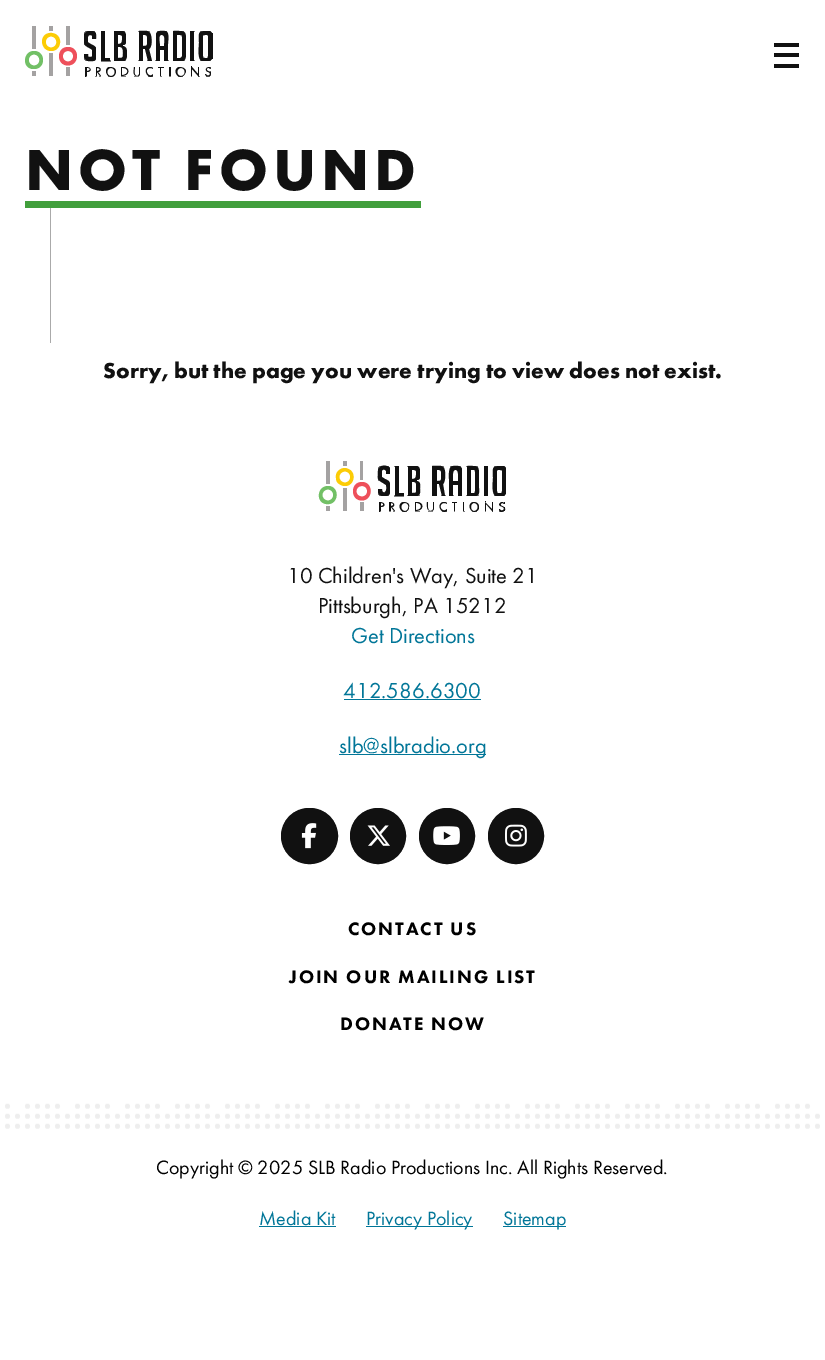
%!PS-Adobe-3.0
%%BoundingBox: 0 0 825 1360
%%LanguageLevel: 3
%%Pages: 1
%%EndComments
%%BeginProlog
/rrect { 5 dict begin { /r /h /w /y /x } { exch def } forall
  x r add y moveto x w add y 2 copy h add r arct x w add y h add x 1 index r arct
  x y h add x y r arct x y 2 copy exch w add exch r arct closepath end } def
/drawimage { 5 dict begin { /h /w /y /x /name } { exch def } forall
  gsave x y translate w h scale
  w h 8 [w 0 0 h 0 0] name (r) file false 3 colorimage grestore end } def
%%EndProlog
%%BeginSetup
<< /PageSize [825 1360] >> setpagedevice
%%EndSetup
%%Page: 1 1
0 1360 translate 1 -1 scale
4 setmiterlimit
1 setgray
0 0 825 1360 rectfill
0.643 0.635 0.635 setrgbcolor
newpath 36 71 moveto 36 76 lineto 32 76 lineto 32 71 lineto closepath 53 53 moveto 53 76 lineto 49 76 lineto 49 53 lineto closepath 70 67 moveto 70 76 lineto 66 76 lineto 66 67 lineto closepath 66 26 moveto 70 26 lineto 70 45 lineto 66 45 lineto closepath 49 26 moveto 53 26 lineto 53 31 lineto 49 31 lineto closepath 36 26 moveto 36 49 lineto 32 49 lineto 32 26 lineto closepath eofill
0.067 setgray
newpath 88 61 moveto 84 60 84 57 84 54 curveto 88 54 lineto 88 56 88 57 90 57 curveto 93 57 92 56 92 54 curveto 92 50 lineto 91 49 lineto 86 46 84 46 84 41 curveto 84 35 lineto 85 31 88 31 91 31 curveto 97 31 96 34 96 39 curveto 92 39 lineto 92 36 lineto 92 35 91 35 90 35 curveto 87 35 88 40 88 42 curveto 89 44 95 45 96 48 curveto 96 59 lineto 95 62 90 61 88 61 curveto closepath 110 61 moveto 101 61 lineto 101 31 lineto 105 31 lineto 105 58 lineto 110 58 lineto closepath 124 61 moveto 114 61 lineto 114 31 lineto 122 31 lineto 125 31 126 33 126 36 curveto 126 42 lineto 126 44 125 45 123 45 curveto 123 46 lineto 127 47 127 50 127 54 curveto 127 56 127 60 124 61 curveto closepath 143 61 moveto 139 61 lineto 139 31 lineto 141 31 147 30 149 32 curveto 152 33 153 47 149 49 curveto 152 61 lineto 148 61 lineto 145 49 lineto 143 49 lineto closepath 160 61 moveto 156 61 lineto 156 34 lineto 157 30 162 31 165 31 curveto 170 31 168 41 168 44 curveto 168 61 lineto 164 61 lineto 164 50 lineto 160 50 lineto closepath 183 61 moveto 173 61 lineto 173 31 lineto 186 31 186 30 186 43 curveto 186 53 lineto 186 56 186 60 183 61 curveto closepath 194 61 moveto 190 61 lineto 190 31 lineto 194 31 lineto closepath 209 61 moveto 202 61 lineto 197 60 199 46 199 43 curveto 199 33 197 31 207 31 curveto 209 31 211 31 212 33 curveto 213 37 213 49 213 53 curveto 213 56 213 60 209 61 curveto closepath 120 35 moveto 123 35 122 38 122 40 curveto 122 43 121 44 118 44 curveto 118 35 lineto closepath 145 35 moveto 148 35 147 39 147 40 curveto 147 45 148 46 143 46 curveto 143 35 lineto closepath 162 35 moveto 166 35 164 44 164 46 curveto 160 46 lineto 160 44 158 35 161 35 curveto closepath 180 35 moveto 181 35 182 35 182 37 curveto 182 56 lineto 182 57 181 58 180 58 curveto 177 58 lineto 177 35 lineto closepath 207 35 moveto 208 35 208 35 208 36 curveto 208 56 lineto 208 57 208 58 207 58 curveto 205 58 lineto 203 58 203 57 203 56 curveto 203 36 lineto 203 35 203 35 205 35 curveto closepath 120 47 moveto 123 47 123 51 123 53 curveto 123 58 123 58 118 58 curveto 118 47 lineto closepath eofill
0.988 0.8 0.024 setrgbcolor
newpath 42 41 moveto 43 29 61.5 31 60 43 curveto 58.5 54.5 42 53.5 42 41 curveto closepath 51 36.5 moveto 58 36.5 58.5 47.5 51 47.5 curveto 44 47.5 44 36.5 51 36.5 curveto closepath eofill
gsave
newpath 91.5 31 moveto 95 31 96.5 32.5 96.5 36 curveto 96.5 39 lineto 92.5 39 lineto 92.5 36.5 lineto 92.5 35 92 34.5 90.5 34.5 curveto 90 34.5 lineto 89 34.5 88.5 35 88.5 36.5 curveto 88.5 41.5 lineto 88.5 42.5 lineto 95.5 46.5 lineto 96 47.5 lineto 96.5 49.5 lineto 96.5 56 lineto 96.5 59.5 95 61 91.5 61 curveto 89 61 lineto 86 61 84 59.5 84 55.5 curveto 84 54 lineto 88.5 54 lineto 88.5 55.5 lineto 88.5 57 89 57.5 90 57.5 curveto 91 57.5 lineto 92 57.5 92.5 57 92.5 55.5 curveto 92.5 50.5 lineto 92 49.5 lineto 85.5 45.5 lineto 84.5 44 lineto 84 42.5 lineto 84 36 lineto 84 32.5 86 31 89 31 curveto closepath 105 31 moveto 105 57.5 lineto 110.5 57.5 lineto 110.5 61.5 lineto 101 61.5 lineto 101 31 lineto closepath 120.5 31 moveto 124.5 31 126 33 126 36.5 curveto 126 42 lineto 126 44 125 45 123 45.5 curveto 125.5 46 126.5 47.5 126.5 49 curveto 126.5 56.5 lineto 126.5 59.5 125 61 122 61 curveto 114 61 lineto 114 31 lineto closepath 146.5 31 moveto 150 31 151.5 32.5 151.5 36 curveto 151.5 43.5 lineto 151.5 46 150.5 48 149 48.5 curveto 152 61 lineto 148 61 lineto 145.5 49 lineto 143 49 lineto 143 61 lineto 138.5 61 lineto 138.5 31 lineto closepath 180 31 moveto 183.5 31 185.5 33 185.5 36.5 curveto 185.5 57 lineto 185.5 60 184 61 180.5 61 curveto 173 61 lineto 173 31 lineto closepath 194.5 31 moveto 194.5 61 lineto 190 61 lineto 190 31 lineto closepath 207.5 31 moveto 211 31 212.5 32.5 212.5 36 curveto 212.5 56 lineto 212.5 59.5 211 61 207.5 61 curveto 204 61 lineto 200.5 61 199 59.5 199 56 curveto 199 36 lineto 199 32.5 200.5 31 204 31 curveto closepath 163.5 31 moveto 166.5 31 168.5 32.5 168.5 36 curveto 168.5 61 lineto 164 61 lineto 164 50 lineto 159.5 50 lineto 159.5 61 lineto 155.5 61 lineto 155.5 36 lineto 155.5 32.5 157 31 160.5 31 curveto closepath 120 47.5 moveto 118 47.5 lineto 118 57.5 lineto 121 57.5 lineto 122 57.5 122.5 57 122.5 56.5 curveto 122.5 49.5 lineto 122.5 48 122 47.5 120 47.5 curveto closepath 180 34.5 moveto 177 34.5 lineto 177 57.5 lineto 180 57.5 lineto 181 57.5 181.5 57 181.5 56.5 curveto 181.5 36.5 lineto 181.5 35.5 181 34.5 180 34.5 curveto closepath 206.5 34.5 moveto 204.5 34.5 lineto 203.5 34.5 203 35 203 36.5 curveto 203 56 lineto 203 57 203.5 57.5 204.5 57.5 curveto 207 57.5 lineto 208 57.5 208.5 57 208.5 56 curveto 208.5 36.5 lineto 208.5 35 208 34.5 206.5 34.5 curveto closepath 162.5 34.5 moveto 161.5 34.5 lineto 160 34.5 159.5 35 159.5 36.5 curveto 159.5 46.5 lineto 164 46.5 lineto 164 36.5 lineto 164 35 163.5 34.5 162.5 34.5 curveto closepath 145.5 34.5 moveto 143 34.5 lineto 143 45.5 lineto 145.5 45.5 lineto 146.5 45.5 147.5 45 147.5 43.5 curveto 147.5 36.5 lineto 147 35.5 146.5 34.5 145.5 34.5 curveto closepath 120.5 34.5 moveto 118 34.5 lineto 118 43.5 lineto 120 43.5 lineto 121.5 43.5 122 43 122 41.5 curveto 122 36.5 lineto 122 35.5 121.5 34.5 120.5 34.5 curveto closepath clip newpath
0.067 setgray
0.7 setlinewidth
newpath 84 31 moveto 212.5 31 lineto 212.5 61 lineto 84 61 lineto closepath stroke
grestore
0.447 0.753 0.4 setrgbcolor
newpath 34 51 moveto 46 51 46 69 34 69 curveto 32 69 lineto 21.5 67 23.5 51 34 51 curveto closepath 34 54.5 moveto 41 54.5 41.5 65.5 34 65.5 curveto 27 65.5 27 54.5 34 54.5 curveto closepath eofill
0.933 0.314 0.357 setrgbcolor
newpath 68 47 moveto 80 47 80 65 68 65.5 curveto 56 65.5 56 47 68 47 curveto closepath 68 51 moveto 75 51 75 61.5 68 61.5 curveto 61 61.5 61 51 68 51 curveto closepath eofill
0.067 setgray
newpath 179 67 moveto 182 67 186 68 186 72 curveto 185 73 185 75 183 76 curveto 177 80 172 69 179 67 curveto closepath 169 67 moveto 171 67 lineto 171 76 lineto 169 76 lineto closepath 149 67 moveto 151 67 152 67 153 68 curveto 153 69 lineto 152 68 151 68 150 68 curveto 143 69 149 79 153 74 curveto 153 76 lineto 148 80 142 69 149 67 curveto closepath 139 67 moveto 140 67 lineto 140 74 lineto 140 76 138 76 137 76 curveto 132 76 134 70 134 67 curveto 135 67 lineto 135 69 133 75 137 76 curveto 138 76 139 75 139 74 curveto closepath 123 67 moveto 130 67 131 76 121 76 curveto 121 67 lineto closepath 109 67 moveto 113 67 116 68 116 72 curveto 116 73 115 75 114 76 curveto 107 80 103 69 109 67 curveto closepath 96 67 moveto 103 67 101 72 98 72 curveto 101 76 lineto 100 76 lineto 97 72 lineto 97 76 lineto 96 76 lineto closepath 86 67 moveto 92 67 92 72 87 72 curveto 87 76 lineto 86 76 lineto closepath 211 73 moveto 211 77 206 78 205 74 curveto 206 74 lineto 206 76 210 76 210 74 curveto 210 73 209 72 208 72 curveto 203 70 208 65 211 68 curveto 210 69 lineto 209 67 206 68 207 70 curveto 208 72 211 71 211 73 curveto closepath 192 67 moveto 198 74 lineto 198 67 lineto 199 67 lineto 199 77 lineto 192 69 lineto 192 76 lineto 191 76 lineto 191 67 lineto closepath 161 68 moveto 164 68 lineto 164 67 lineto 158 67 lineto 158 68 lineto 160 68 lineto 160 76 lineto 161 76 lineto closepath 111 68 moveto 116 68 116 76 111 76 curveto 106 76 106 68 111 68 curveto closepath 181 68 moveto 186 68 186 76 181 76 curveto 176 76 176 68 181 68 curveto closepath 88 68 moveto 91 68 90 71 87 71 curveto 87 68 lineto closepath 97 68 moveto 101 68 100 71 97 71 curveto closepath 123 68 moveto 129 68 129 75 122 75 curveto 122 68 lineto closepath eofill
gsave
newpath 191 66.5 moveto 198.5 74.5 lineto 198.5 67 lineto 199.5 67 lineto 199.5 77 lineto 192 69 lineto 192 76.5 lineto 191 76.5 lineto closepath 150.5 67 moveto 151.5 67 152.5 67 153.5 68 curveto 153.5 69 lineto 152 68 lineto 150.5 68 lineto 148.5 68 147 69.5 147 71.5 curveto 147 74 149 75.5 150.5 75.5 curveto 152.5 75 lineto 153.5 74.5 lineto 153.5 75.5 lineto 152.5 76.5 151.5 76.5 150.5 76.5 curveto 148 76.5 146 74.5 146 71.5 curveto 146 69 148 67 150.5 67 curveto closepath 111 67 moveto 113.5 67 115.5 69 115.5 71.5 curveto 115.5 74.5 113.5 76.5 111 76.5 curveto 108 76.5 106 74.5 106 71.5 curveto 106 69 108 67 111 67 curveto closepath 134.5 67 moveto 134.5 73 lineto 134.5 73.5 134.5 74.5 135.5 75 curveto 137 75.5 lineto 138.5 75 lineto 139 74.5 139 73.5 139 72.5 curveto 139 67 lineto 140 67 lineto 140 73 lineto 140 74 140 74.5 139.5 75 curveto 139 76 138 76.5 137 76.5 curveto 135.5 76.5 134.5 76 134 75 curveto 133.5 74.5 133.5 74 133.5 73 curveto 133.5 67 lineto closepath 180.5 67 moveto 183.5 67 185.5 69 185.5 71.5 curveto 185.5 74.5 183.5 76.5 180.5 76.5 curveto 178 76.5 176 74.5 176 71.5 curveto 176 69 178 67 180.5 67 curveto closepath 208 67 moveto 209.5 67 lineto 210.5 68.5 lineto 210 69 lineto 209 68 lineto 208 68 lineto 207 68 206.5 68.5 206.5 69.5 curveto 207 70 lineto 210.5 72 lineto 211 72.5 211 73 211 73.5 curveto 211 75.5 210 76.5 208 76.5 curveto 207.5 76.5 206.5 76.5 206 76 curveto 205 74 lineto 206 74 lineto 206.5 75 lineto 207 75.5 207.5 75.5 208 75.5 curveto 209.5 75.5 210 74.5 210 74 curveto 209.5 72.5 lineto 206.5 71 lineto 206 70.5 205.5 70 205.5 69.5 curveto 205.5 68 206.5 67 208 67 curveto closepath 163.5 67 moveto 163.5 68 lineto 161.5 68 lineto 161.5 76.5 lineto 160.5 76.5 lineto 160.5 68 lineto 158 68 lineto 158 67 lineto closepath 170.5 67 moveto 170.5 76.5 lineto 169.5 76.5 lineto 169.5 67 lineto closepath 87.5 67 moveto 88.5 67 89 67 89.5 67.5 curveto 90.5 68 90.5 69 90.5 69.5 curveto 90.5 71 90 72.5 87.5 72.5 curveto 87 72.5 lineto 87 76.5 lineto 85.5 76.5 lineto 85.5 67 lineto closepath 97.5 67 moveto 98 67 99 67 99.5 67.5 curveto 100 68 100.5 68.5 100.5 69.5 curveto 100.5 71 99.5 72 98 72 curveto 101 76.5 lineto 100 76.5 lineto 97 72.5 lineto 97 76.5 lineto 95.5 76.5 lineto 95.5 67 lineto closepath 123.5 67 moveto 124 67 125.5 67 127 68 curveto 127.5 69 128.5 70 128.5 71.5 curveto 128.5 73.5 127.5 74.5 127 75.5 curveto 126 76 125 76.5 123.5 76.5 curveto 121.5 76.5 lineto 121.5 67 lineto closepath 111 68 moveto 109 68 107 69.5 107 71.5 curveto 107 74 109 75.5 111 75.5 curveto 113 75.5 114.5 74 114.5 71.5 curveto 114.5 69.5 113 68 111 68 curveto closepath 180.5 68 moveto 178.5 68 177 69.5 177 71.5 curveto 177 74 178.5 75.5 180.5 75.5 curveto 183 75.5 184.5 74 184.5 71.5 curveto 184.5 69.5 183 68 180.5 68 curveto closepath 123.5 68 moveto 122.5 68 lineto 122.5 75.5 lineto 123.5 75.5 lineto 124 75.5 125 75.5 126 74.5 curveto 126.5 74 127 73 127 71.5 curveto 127.5 69.5 125.5 68 123.5 68 curveto closepath 97.5 68 moveto 97 68 lineto 97 71.5 lineto 97.5 71.5 lineto 98.5 71.5 99.5 70.5 99.5 69.5 curveto 99.5 69 99.5 68.5 99 68 curveto closepath 87.5 68 moveto 87 68 lineto 87 71.5 lineto 87.5 71.5 lineto 89 71.5 89.5 70.5 89.5 69.5 curveto 89.5 68 88 68 87.5 68 curveto closepath clip newpath
0.7 setlinewidth
newpath 85.5 66.5 moveto 211 66.5 lineto 211 77 lineto 85.5 77 lineto closepath stroke
grestore
774 43 25 4 rectfill
774 53 25 4 rectfill
774 64 25 4 rectfill
0.667 setgray
50 205 1 138 rectfill
0.255 0.624 0.235 setrgbcolor
25 201 396 7 rectfill
0.643 0.635 0.635 setrgbcolor
newpath 330 506 moveto 330 511 lineto 326 511 lineto 326 506 lineto closepath 347 488 moveto 347 511 lineto 343 511 lineto 343 488 lineto closepath 364 502 moveto 364 511 lineto 360 511 lineto 360 502 lineto closepath 360 461 moveto 363 461 lineto 363 480 lineto 360 480 lineto closepath 343 461 moveto 347 461 lineto 347 466 lineto 343 466 lineto closepath 330 461 moveto 330 484 lineto 326 484 lineto 326 461 lineto closepath eofill
gsave
319 460 187 53 rectclip
0.067 setgray
newpath 378 470 moveto 379 464 388 465 390 468 curveto 390 474 lineto 386 474 lineto 386 471 lineto 385 469 382 469 382 471 curveto 382 477 lineto 385 479 lineto 389 481 390 481 390 486 curveto 390 493 lineto 389 496 387 496 385 496 curveto 379 496 378 495 378 489 curveto 382 489 lineto 382 495 388 493 386 485 curveto 383 483 lineto 376 479 378 479 378 470 curveto closepath 404 496 moveto 395 496 lineto 395 466 lineto 399 466 lineto 399 493 lineto 404 493 lineto closepath 417 496 moveto 408 496 lineto 408 466 lineto 416 466 lineto 419 466 420 468 420 471 curveto 420 477 lineto 420 479 419 480 417 480 curveto 417 481 lineto 421 482 420 485 420 489 curveto 420 491 421 495 417 496 curveto closepath 437 496 moveto 432 496 lineto 432 466 lineto 435 466 441 465 443 467 curveto 446 468 446 482 443 484 curveto 445 496 lineto 442 496 lineto 439 484 lineto 437 484 lineto closepath 453 496 moveto 449 496 lineto 449 479 lineto 449 476 448 466 453 466 curveto 456 466 461 465 462 469 curveto 462 496 lineto 458 496 lineto 458 485 lineto 453 485 lineto closepath 476 496 moveto 467 496 lineto 467 466 lineto 479 466 479 465 479 478 curveto 479 488 lineto 479 491 480 495 476 496 curveto closepath 488 496 moveto 484 496 lineto 484 466 lineto 488 466 lineto closepath 503 496 moveto 496 496 lineto 491 495 493 481 493 478 curveto 493 468 491 466 501 466 curveto 503 466 505 466 506 468 curveto 506 485 lineto 506 488 508 495 503 496 curveto closepath 414 470 moveto 417 470 416 473 416 475 curveto 416 478 415 479 412 479 curveto 412 470 lineto closepath 439 470 moveto 442 470 441 474 441 475 curveto 441 480 442 481 437 481 curveto 437 470 lineto closepath 456 470 moveto 459 470 458 479 458 481 curveto 453 481 lineto 453 479 452 470 455 470 curveto closepath 474 470 moveto 475 470 475 470 475 472 curveto 475 491 lineto 475 492 475 493 474 493 curveto 471 493 lineto 471 470 lineto closepath 500 470 moveto 502 470 502 470 502 471 curveto 502 491 lineto 502 492 502 493 501 493 curveto 498 493 lineto 497 493 497 492 497 491 curveto 497 471 lineto 497 470 497 470 498 470 curveto closepath 414 482 moveto 417 482 416 486 416 488 curveto 416 493 417 493 412 493 curveto 412 482 lineto closepath eofill
grestore
0.988 0.8 0.024 setrgbcolor
newpath 336 475 moveto 336.5 472.5 338 470.5 340 469.5 curveto 342 468 345 467.5 347 468.5 curveto 357 471 355 486 345 486 curveto 343 486 341.5 485.5 340 484.5 curveto 335.5 482 336 479 336 475 curveto closepath 345 471.5 moveto 352 471.5 352 482.5 345 482.5 curveto 337.5 482.5 337.5 471.5 345 471.5 curveto closepath eofill
gsave
319 460 187 53 rectclip
newpath 385.5 466 moveto 388.5 466 390 467.5 390 471 curveto 390 474 lineto 386 474 lineto 386 471.5 lineto 386 470 385.5 469.5 384.5 469.5 curveto 383.5 469.5 lineto 382.5 469.5 382 470 382 471.5 curveto 382 476.5 lineto 382.5 477.5 lineto 389 481.5 lineto 390 482.5 lineto 390 484.5 lineto 390 491 lineto 390 494.5 388.5 496 385.5 496 curveto 383 496 lineto 379.5 496 378 494.5 378 490.5 curveto 378 489 lineto 382 489 lineto 382 490.5 lineto 382 492 382.5 492.5 384 492.5 curveto 384.5 492.5 lineto 385.5 492.5 386 492 386 490.5 curveto 386 485.5 lineto 386 484.5 lineto 379 480.5 lineto 378.5 479 lineto 378 477.5 lineto 378 471 lineto 378 467.5 379.5 466 383 466 curveto closepath 398.5 466 moveto 398.5 492.5 lineto 404 492.5 lineto 404 496.5 lineto 394.5 496.5 lineto 394.5 466 lineto closepath 414.5 466 moveto 418 466 420 468 420 471.5 curveto 420 477 lineto 420 479 419 480 417 480.5 curveto 419 481 420.5 482.5 420.5 484 curveto 420.5 491.5 lineto 420.5 494.5 419 496 415.5 496 curveto 407.5 496 lineto 407.5 466 lineto closepath 440.5 466 moveto 443.5 466 445 467.5 445 471 curveto 445 478.5 lineto 445 481 444.5 483 442.5 483.5 curveto 445.5 496 lineto 441.5 496 lineto 439 484 lineto 436.5 484 lineto 436.5 496 lineto 432.5 496 lineto 432.5 466 lineto closepath 473.5 466 moveto 477.5 466 479.5 468 479.5 471.5 curveto 479.5 492 lineto 479.5 495 477.5 496 474.5 496 curveto 466.5 496 lineto 466.5 466 lineto closepath 488 466 moveto 488 496 lineto 484 496 lineto 484 466 lineto closepath 501.5 466 moveto 504.5 466 506.5 467.5 506.5 471 curveto 506.5 491 lineto 506.5 494.5 504.5 496 501.5 496 curveto 497.5 496 lineto 494.5 496 492.5 494.5 492.5 491 curveto 492.5 471 lineto 492.5 467.5 494.5 466 497.5 466 curveto closepath 457 466 moveto 460.5 466 462 467.5 462 471 curveto 462 496 lineto 458 496 lineto 458 485 lineto 453.5 485 lineto 453.5 496 lineto 449.5 496 lineto 449.5 471 lineto 449.5 467.5 451 466 454 466 curveto closepath 414 482.5 moveto 411.5 482.5 lineto 411.5 492.5 lineto 414.5 492.5 lineto 415.5 492.5 416.5 492 416.5 491.5 curveto 416.5 484.5 lineto 416 483 415.5 482.5 414 482.5 curveto closepath 473.5 469.5 moveto 470.5 469.5 lineto 470.5 492.5 lineto 473.5 492.5 lineto 475 492.5 475.5 492 475.5 491.5 curveto 475.5 471.5 lineto 475.5 470.5 474.5 469.5 473.5 469.5 curveto closepath 500.5 469.5 moveto 498.5 469.5 lineto 497 469.5 496.5 470 496.5 471.5 curveto 496.5 491 lineto 496.5 492 497 492.5 498.5 492.5 curveto 500.5 492.5 lineto 501.5 492.5 502 492 502 491 curveto 502 471.5 lineto 502 470 501.5 469.5 500.5 469.5 curveto closepath 456 469.5 moveto 455 469.5 lineto 454 469.5 453.5 470 453.5 471.5 curveto 453.5 481.5 lineto 458 481.5 lineto 458 471.5 lineto 458 470 457.5 469.5 456 469.5 curveto closepath 439 469.5 moveto 436.5 469.5 lineto 436.5 480.5 lineto 439 480.5 lineto 440.5 480.5 441 480 441 478.5 curveto 441 471.5 lineto 441 470.5 440.5 469.5 439 469.5 curveto closepath 414 469.5 moveto 411.5 469.5 lineto 411.5 478.5 lineto 413.5 478.5 lineto 415 478.5 416 478 416 476.5 curveto 416 471.5 lineto 416 470.5 415 469.5 414 469.5 curveto closepath clip newpath
0.067 setgray
0.7 setlinewidth
newpath 378 466 moveto 506.5 466 lineto 506.5 496 lineto 378 496 lineto closepath stroke
grestore
0.447 0.753 0.4 setrgbcolor
newpath 328 486 moveto 340.5 486 339 506 326 504 curveto 315.5 502.5 317 486 328 486 curveto closepath 328 489.5 moveto 335 489.5 335 500.5 328 500.5 curveto 320.5 500.5 320.5 489.5 328 489.5 curveto closepath eofill
0.933 0.314 0.357 setrgbcolor
newpath 362 482 moveto 373.5 482 373.5 500 362 500.5 curveto 350 500.5 350 482 362 482 curveto closepath 362 486 moveto 369 486 369 496.5 362 496.5 curveto 354.5 496.5 354.5 486 362 486 curveto closepath eofill
0.067 setgray
newpath 473 502 moveto 476 502 479 503 479 507 curveto 479 508 479 510 477 511 curveto 471 515 466 504 473 502 curveto closepath 463 502 moveto 464 502 lineto 464 511 lineto 463 511 lineto closepath 443 502 moveto 445 502 446 502 447 503 curveto 447 504 lineto 446 503 445 503 444 503 curveto 437 504 442 514 447 509 curveto 447 511 lineto 441 515 436 504 443 502 curveto closepath 433 502 moveto 434 502 lineto 434 509 lineto 433 511 432 511 431 511 curveto 426 511 427 505 427 502 curveto 428 502 lineto 428 504 427 510 430 511 curveto 432 511 433 510 433 509 curveto closepath 417 502 moveto 424 502 425 511 415 511 curveto 415 502 lineto closepath 403 502 moveto 406 502 410 503 409 507 curveto 409 508 409 510 407 511 curveto 401 515 396 504 403 502 curveto closepath 389 502 moveto 396 502 395 507 392 507 curveto 395 511 lineto 394 511 lineto 391 507 lineto 391 511 lineto 389 511 lineto closepath 379 502 moveto 386 502 386 507 381 507 curveto 381 511 lineto 379 511 lineto closepath 501 502 moveto 503 502 503 502 504 503 curveto 504 504 lineto 503 503 503 503 502 503 curveto 501 504 lineto 499 506 506 506 505 510 curveto 504 511 503 511 502 512 curveto 500 512 499 511 499 509 curveto 500 509 lineto 500 511 503 511 504 509 curveto 504 506 499 507 499 504 curveto closepath 485 502 moveto 492 509 lineto 492 502 lineto 493 502 lineto 493 512 lineto 486 504 lineto 486 511 lineto 485 511 lineto closepath 457 503 moveto 457 502 lineto 452 502 lineto 452 503 lineto 454 503 lineto 454 511 lineto 455 511 lineto 455 503 lineto closepath 405 503 moveto 410 503 409 511 405 511 curveto 400 511 400 503 405 503 curveto closepath 474 503 moveto 479 503 479 511 474 511 curveto 470 511 470 503 474 503 curveto closepath 381 503 moveto 384 503 384 506 381 506 curveto closepath 391 503 moveto 394 503 394 506 391 506 curveto closepath 417 503 moveto 422 503 423 510 416 510 curveto 416 503 lineto closepath eofill
gsave
newpath 485 501.5 moveto 492 509.5 lineto 492 502 lineto 493 502 lineto 493 512 lineto 486 504 lineto 486 511.5 lineto 485 511.5 lineto closepath 444.5 502 moveto 445 502 446 502 447 503 curveto 447 504 lineto 446 503 lineto 444.5 503 lineto 442 503 440.5 504.5 440.5 506.5 curveto 440.5 509 442.5 510.5 444.5 510.5 curveto 446 510 lineto 447 509.5 lineto 447 510.5 lineto 446 511.5 445 511.5 444.5 511.5 curveto 441.5 511.5 439.5 509.5 439.5 506.5 curveto 439.5 504 441.5 502 444.5 502 curveto closepath 404.5 502 moveto 407.5 502 409.5 504 409.5 506.5 curveto 409.5 509.5 407.5 511.5 404.5 511.5 curveto 402 511.5 399.5 509.5 399.5 506.5 curveto 399.5 504 402 502 404.5 502 curveto closepath 428.5 502 moveto 428.5 508 lineto 428.5 508.5 428.5 509.5 429 510 curveto 430.5 510.5 lineto 432 510 lineto 433 509.5 433 508.5 433 507.5 curveto 433 502 lineto 434 502 lineto 434 508 lineto 434 509 434 509.5 433.5 510 curveto 433 511 432 511.5 430.5 511.5 curveto 429.5 511.5 428.5 511 428 510 curveto 427.5 509.5 427.5 509 427.5 508 curveto 427.5 502 lineto closepath 474.5 502 moveto 477 502 479.5 504 479.5 506.5 curveto 479.5 509.5 477 511.5 474.5 511.5 curveto 471.5 511.5 469.5 509.5 469.5 506.5 curveto 469.5 504 471.5 502 474.5 502 curveto closepath 502 502 moveto 503.5 502 lineto 504.5 503.5 lineto 503.5 504 lineto 503 503 lineto 502 503 lineto 501 503 500.5 503.5 500.5 504.5 curveto 501 505 lineto 504 507 lineto 504.5 507.5 505 508 505 508.5 curveto 505 510.5 503.5 511.5 502 511.5 curveto 501 511.5 500.5 511.5 499.5 511 curveto 499 509 lineto 500 509 lineto 500.5 510 lineto 501 510.5 501.5 510.5 502 510.5 curveto 503 510.5 503.5 509.5 503.5 509 curveto 503 507.5 lineto 500 506 lineto 499.5 505.5 499.5 505 499.5 504.5 curveto 499.5 503 500.5 502 502 502 curveto closepath 457.5 502 moveto 457.5 503 lineto 455 503 lineto 455 511.5 lineto 454 511.5 lineto 454 503 lineto 452 503 lineto 452 502 lineto closepath 464.5 502 moveto 464.5 511.5 lineto 463 511.5 lineto 463 502 lineto closepath 381 502 moveto 382 502 383 502 383.5 502.5 curveto 384 503 384.5 504 384.5 504.5 curveto 384.5 506 383.5 507.5 381.5 507.5 curveto 380.5 507.5 lineto 380.5 511.5 lineto 379.5 511.5 lineto 379.5 502 lineto closepath 391 502 moveto 391.5 502 392.5 502 393.5 502.5 curveto 394 503 394.5 503.5 394.5 504.5 curveto 394.5 506 393.5 507 392 507 curveto 395 511.5 lineto 393.5 511.5 lineto 391 507.5 lineto 390.5 507.5 lineto 390.5 511.5 lineto 389.5 511.5 lineto 389.5 502 lineto closepath 417 502 moveto 418 502 419.5 502 420.5 503 curveto 421.5 504 422 505 422 506.5 curveto 422 508.5 421 509.5 420.5 510.5 curveto 419.5 511 418.5 511.5 417 511.5 curveto 415 511.5 lineto 415 502 lineto closepath 404.5 503 moveto 402.5 503 401 504.5 401 506.5 curveto 401 509 402.5 510.5 404.5 510.5 curveto 406.5 510.5 408.5 509 408.5 506.5 curveto 408.5 504.5 407 503 404.5 503 curveto closepath 474.5 503 moveto 472.5 503 470.5 504.5 470.5 506.5 curveto 470.5 509 472.5 510.5 474.5 510.5 curveto 476.5 510.5 478 509 478 506.5 curveto 478 504.5 476.5 503 474.5 503 curveto closepath 417 503 moveto 416 503 lineto 416 510.5 lineto 417 510.5 lineto 418 510.5 419 510.5 419.5 509.5 curveto 420.5 509 421 508 421 506.5 curveto 421 504.5 419.5 503 417 503 curveto closepath 391 503 moveto 390.5 503 lineto 390.5 506.5 lineto 391 506.5 lineto 392.5 506.5 393.5 505.5 393.5 504.5 curveto 393.5 504 393 503.5 392.5 503 curveto closepath 381.5 503 moveto 380.5 503 lineto 380.5 506.5 lineto 381.5 506.5 lineto 382.5 506.5 383.5 505.5 383.5 504.5 curveto 383.5 503 382 503 381.5 503 curveto closepath clip newpath
0.7 setlinewidth
newpath 379.5 501.5 moveto 504.5 501.5 lineto 504.5 512 lineto 379.5 512 lineto closepath stroke
grestore
0.004 0.463 0.596 setrgbcolor
344 699 137 1 rectfill
339 754 147 1 rectfill
0.067 setgray
281.5 808.5 56 55 27.5 rrect gsave fill grestore
stroke
(images/1.raw) 301 823 16 26 drawimage
newpath 378 836 27.5 0 360 arc closepath gsave fill grestore
stroke
(images/2.raw) 367 825 23 21 drawimage
newpath 447 836 27.5 0 360 arc closepath gsave fill grestore
stroke
(images/3.raw) 433 826 27 19 drawimage
newpath 516 836 27.5 0 360 arc closepath gsave fill grestore
stroke
(images/4.raw) 505 824 22 23 drawimage
(images/5.raw) 5 1103 815 26 drawimage
0.004 0.463 0.596 setrgbcolor
259 1226 77 1 rectfill
366 1226 107 1 rectfill
503 1226 63 1 rectfill
/FuturaPT-Bold [60 0 0 -60 0 0] selectfont
0.067 setgray
25 190 moveto 5 0 (NOT FOUND) ashow
/FuturaPT-Bold [22.5 0 0 -22.5 0 0] selectfont
103 378 moveto (Sorry, but the page you were trying to view does not exist.) show
/FuturaPT-Regular [22.5 0 0 -22.5 0 0] selectfont
287 583 moveto (10 Children's Way, Suite 21) show
318 613 moveto (Pittsburgh, PA 15212) show
0.004 0.463 0.596 setrgbcolor
351 643 moveto (Get Directions) show
343 698 moveto (412.586.6300) show
339 753 moveto (slb@slbradio.org) show
/FuturaPT-Black [18.75 0 0 -18.75 0 0] selectfont
0 setgray
348 935 moveto 1.9 0 (CONTACT US) ashow
289 983 moveto 1.9 0 (JOIN OUR MAILING LIST) ashow
340 1030 moveto 1.9 0 (DONATE NOW) ashow
/FuturaPT-Regular [20 0 0 -20 0 0] selectfont
156 1174 moveto (Copyright © 2025 SLB Radio Productions Inc. All Rights Reserved.) show
0.004 0.463 0.596 setrgbcolor
259 1225 moveto (Media Kit) show
366 1225 moveto (Privacy Policy) show
503 1225 moveto (Sitemap) show
showpage
%%EOF
